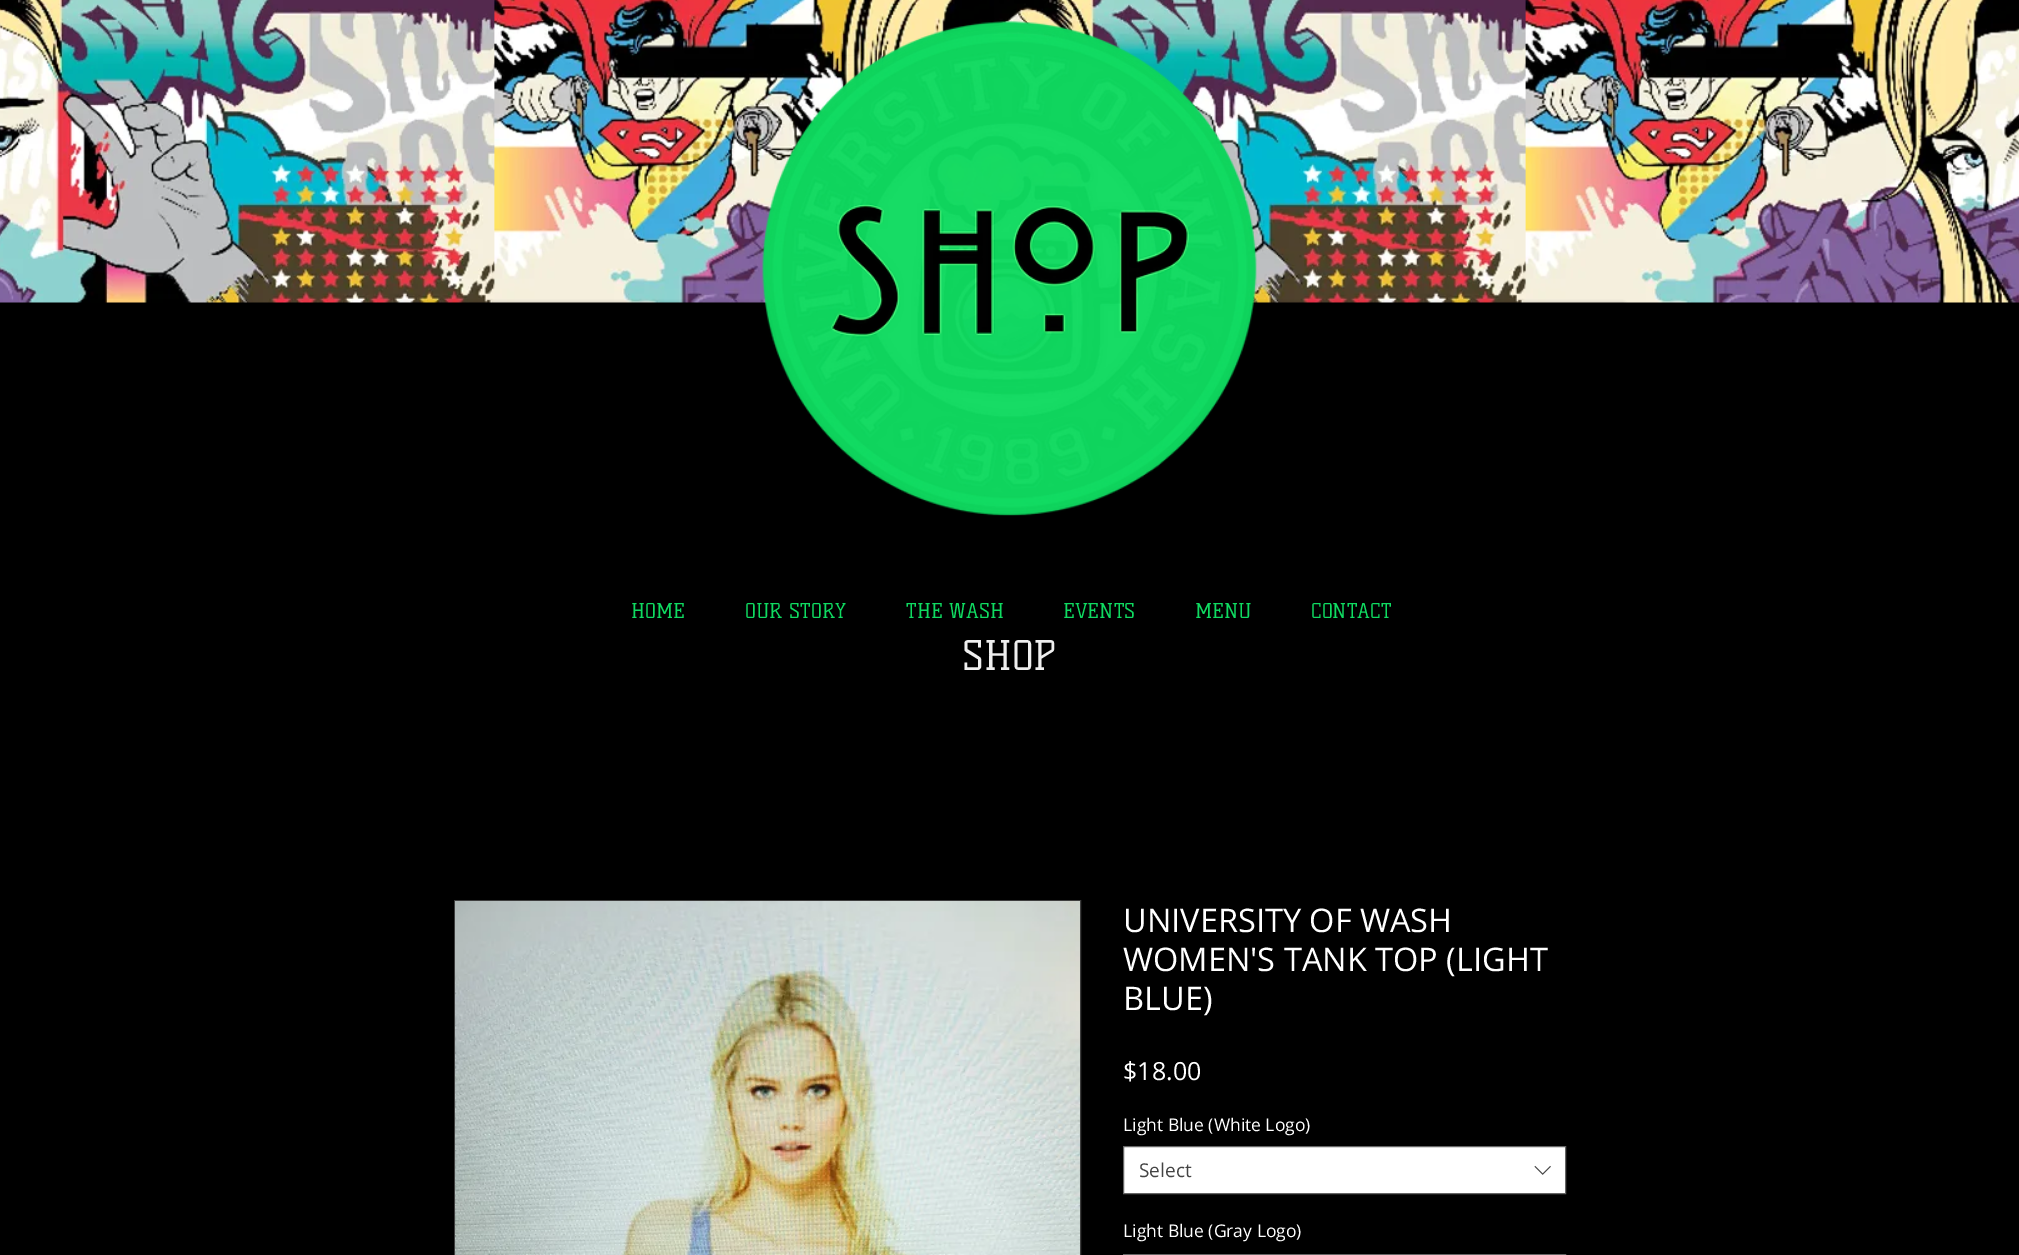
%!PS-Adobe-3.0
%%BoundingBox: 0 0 2019 1255
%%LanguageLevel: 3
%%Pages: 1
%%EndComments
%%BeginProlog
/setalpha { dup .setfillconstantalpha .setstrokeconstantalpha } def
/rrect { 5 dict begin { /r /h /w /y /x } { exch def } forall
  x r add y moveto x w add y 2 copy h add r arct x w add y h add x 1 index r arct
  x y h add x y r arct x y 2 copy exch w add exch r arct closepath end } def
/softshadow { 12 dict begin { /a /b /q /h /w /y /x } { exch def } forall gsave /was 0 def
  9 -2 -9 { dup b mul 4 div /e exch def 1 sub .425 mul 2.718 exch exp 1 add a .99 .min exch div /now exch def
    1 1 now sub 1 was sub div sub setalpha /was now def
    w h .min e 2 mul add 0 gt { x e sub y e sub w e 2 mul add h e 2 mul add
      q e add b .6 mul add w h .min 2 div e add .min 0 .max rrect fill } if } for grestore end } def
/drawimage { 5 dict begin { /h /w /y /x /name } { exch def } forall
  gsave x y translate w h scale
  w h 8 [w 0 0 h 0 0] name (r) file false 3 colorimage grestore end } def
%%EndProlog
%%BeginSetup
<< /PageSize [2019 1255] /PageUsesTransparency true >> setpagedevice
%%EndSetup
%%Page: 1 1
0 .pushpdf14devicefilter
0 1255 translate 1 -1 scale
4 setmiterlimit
0 setgray
0 0 2019 1255 rectfill
(images/1.raw) 0 0 2019 303 drawimage
gsave
newpath 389 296 moveto 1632 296 lineto 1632 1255 lineto 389 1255 lineto closepath 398 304 moveto 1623 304 lineto 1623 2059 lineto 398 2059 lineto closepath eoclip newpath
398 305 1225 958 0 2.5 0.6 softshadow
grestore
(images/2.raw) 762 21 495 495 drawimage
0.243 setgray
454.5 900.5 626 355 rectstroke
(images/3.raw) 455 901 625 354 drawimage
1 setgray
newpath 1123.5 1146.5 moveto 1565.5 1146.5 lineto 1565.5 1193.5 lineto 1123.5 1193.5 lineto closepath gsave fill grestore
0.4 setgray
stroke
(images/4.raw) 1534 1165 17 10 drawimage
1123.5 1254.5 442 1 rectstroke
/KellySlab-Regular [20 0 0 -20 0 0] selectfont
0.059 0.859 0.38 setrgbcolor
631 618 moveto (HOME) show
745 618 moveto (OUR STORY) show
906 618 moveto (THE WASH) show
1063 618 moveto (EVENTS) show
1195 618 moveto (MENU) show
1311 618 moveto (CONTACT) show
/KellySlab-Regular [40 0 0 -40 0 0] selectfont
0.937 setgray
962 670 moveto (SHOP) show
/OpenSans-Regular [32.5 0 0 -32.5 0 0] selectfont
1 setgray
1123 932 moveto (UNIVERSITY OF WASH) show
1123 971 moveto (WOMEN'S TANK TOP \(LIGHT) show
1123 1010 moveto (BLUE\)) show
/OpenSans-Regular [25 0 0 -25 0 0] selectfont
1123 1080 moveto ($18.00) show
/OpenSans-Regular [17.5 0 0 -17.5 0 0] selectfont
1123 1131 moveto (Light Blue \(White Logo\)) show
/OpenSans-Regular [19 0 0 -19 0 0] selectfont
0.267 setgray
1139 1177 moveto (Select) show
/OpenSans-Regular [17.5 0 0 -17.5 0 0] selectfont
1 setgray
1123 1237 moveto (Light Blue \(Gray Logo\)) show
.poppdf14devicefilter showpage
%%EOF
